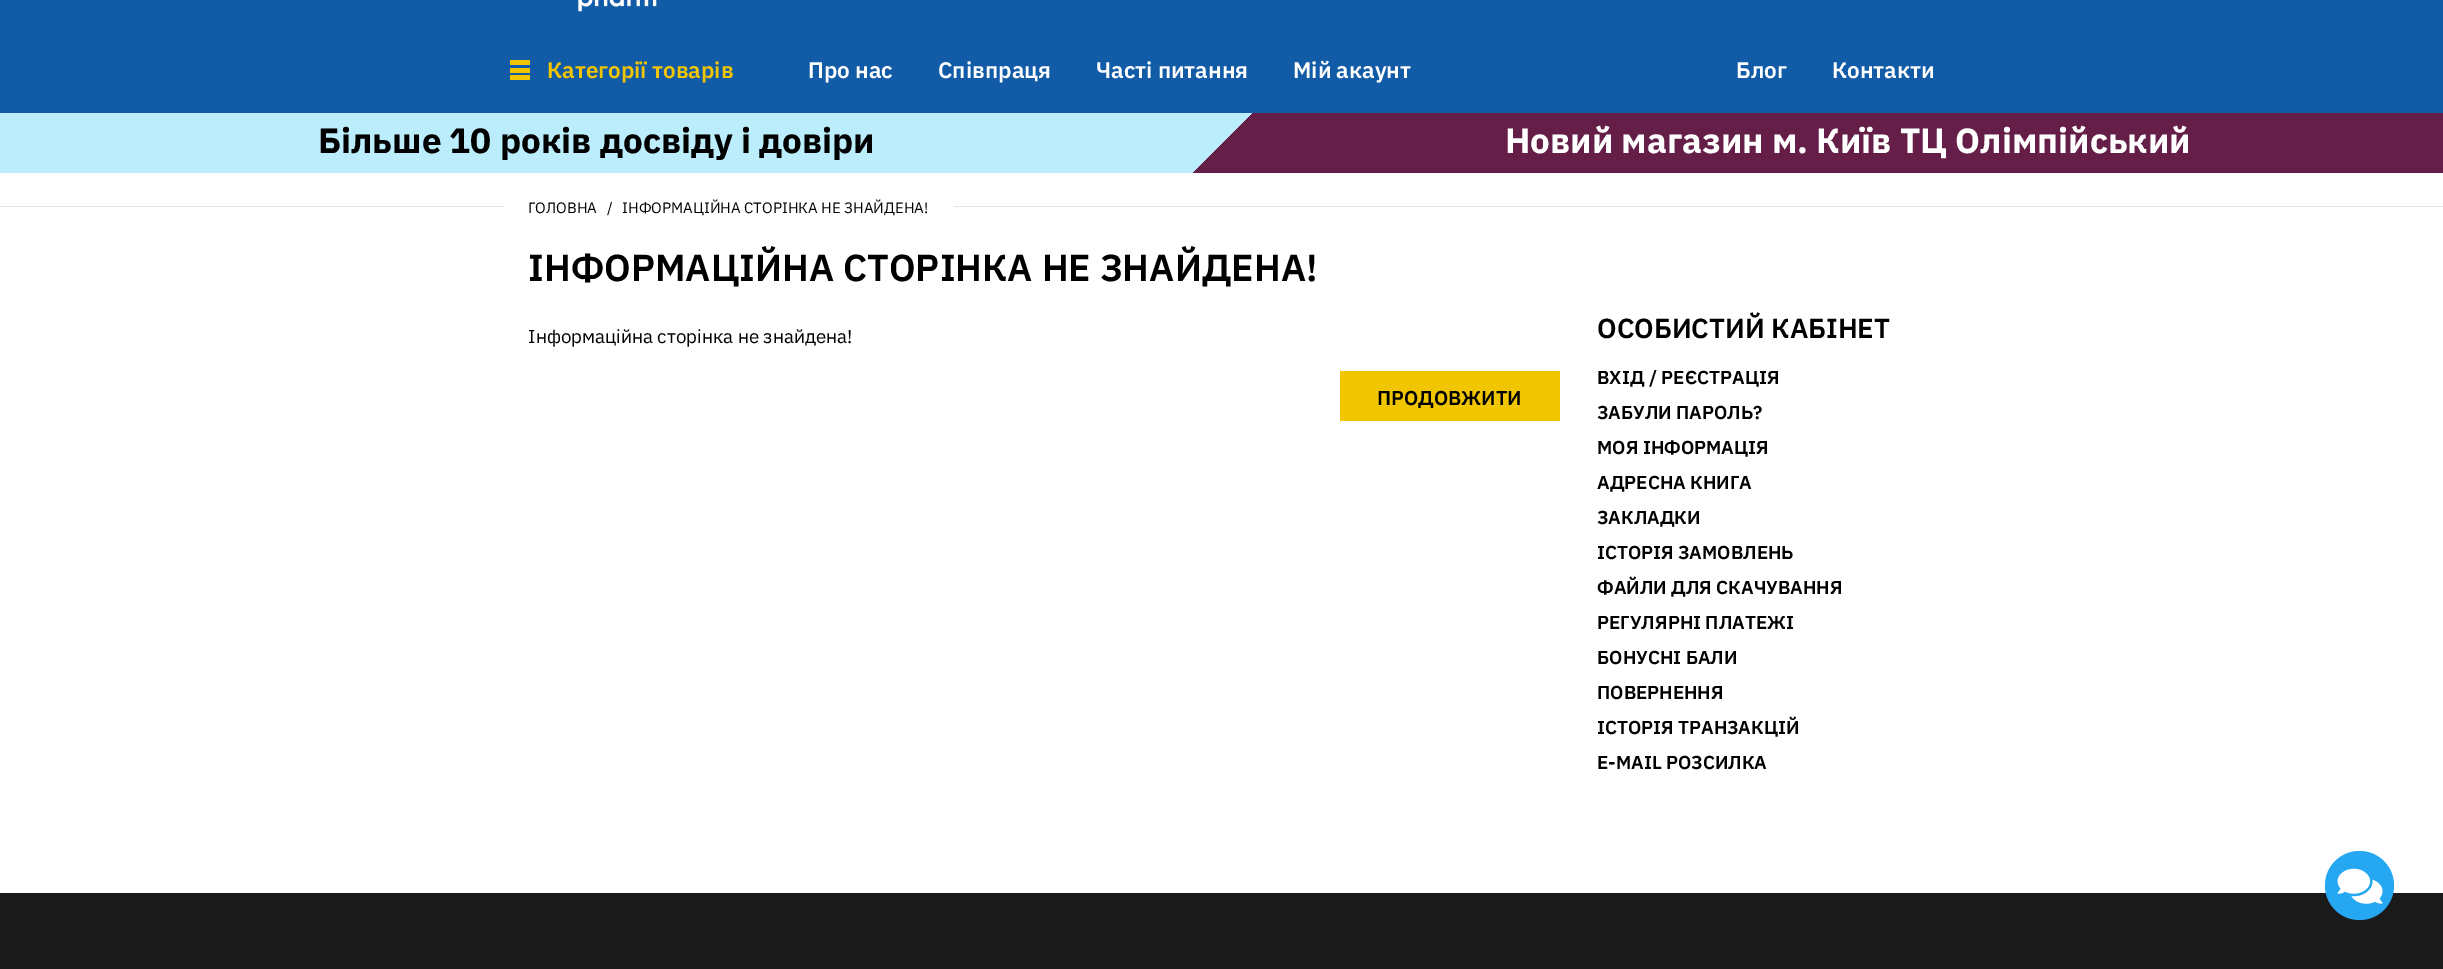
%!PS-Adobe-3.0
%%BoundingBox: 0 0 2443 969
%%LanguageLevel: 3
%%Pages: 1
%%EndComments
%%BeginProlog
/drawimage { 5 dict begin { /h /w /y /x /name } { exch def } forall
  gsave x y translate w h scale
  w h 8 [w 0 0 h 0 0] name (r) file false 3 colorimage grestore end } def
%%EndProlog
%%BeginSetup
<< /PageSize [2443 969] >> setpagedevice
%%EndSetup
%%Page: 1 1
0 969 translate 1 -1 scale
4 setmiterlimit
1 setgray
0 0 2443 969 rectfill
0.067 0.357 0.655 setrgbcolor
0 0 2443 113 rectfill
(images/1.raw) 578 0 79 12 drawimage
0.945 0.776 0 setrgbcolor
510 60 20 5 rectfill
510 75 20 5 rectfill
510 68 20 5 rectfill
0.737 0.929 0.988 setrgbcolor
0 113 1193 60 rectfill
gsave newpath 1193 113 moveto 1253 113 lineto 1253 173 lineto 1193 173 lineto closepath clip newpath
<< /ShadingType 2 /ColorSpace /DeviceRGB /Coords [1253 173 1193 113] /Extend [true true] /Function << /FunctionType 3 /Domain [0 1] /Functions [<< /FunctionType 2 /Domain [0 1] /C0 [0.392 0.118 0.278] /C1 [0.392 0.118 0.278] /N 1 >> << /FunctionType 2 /Domain [0 1] /C0 [0.737 0.929 0.988] /C1 [0.737 0.929 0.988] /N 1 >>] /Bounds [0.5] /Encode [0 1 0 1] >> >> shfill grestore
0.392 0.118 0.278 setrgbcolor
1253 113 1190 60 rectfill
0.902 setgray
0 206 2443 1 rectfill
1 setgray
504 206 450 1 rectfill
0.945 0.776 0 setrgbcolor
1340 371 220 50 rectfill
0.102 setgray
0 893 2443 76 rectfill
0.145 0.655 0.949 setrgbcolor
newpath 2359.5 885.5 34.5 0 360 arc closepath fill
(images/2.raw) 2337 868 46 36 drawimage
/IBMPlexSans-SemiBold [22.5 0 0 -22.5 0 0] selectfont
0.945 0.776 0 setrgbcolor
547 78 moveto (Категорії товарів) show
1 setgray
808 78 moveto (Про нас) show
938 78 moveto (Співпраця) show
1096 78 moveto (Часті питання) show
1293 78 moveto (Мій акаунт) show
1736 78 moveto (Блог) show
1832 78 moveto (Контакти) show
/IBMPlexSans-Bold [35 0 0 -35 0 0] selectfont
0 setgray
318 153 moveto (Більше 10 років досвіду і довіри) show
1 setgray
1505 153 moveto (Новий магазин м. Київ ТЦ Олімпійський) show
/IBMPlexSans-Regular [15 0 0 -15 0 0] selectfont
0 setgray
528 213 moveto (ГОЛОВНА) show
607 213 moveto (/) show
622 213 moveto (ІНФОРМАЦІЙНА СТОРІНКА НЕ ЗНАЙДЕНА!) show
/IBMPlexSans-SemiBold [37.5 0 0 -37.5 0 0] selectfont
528 281 moveto (ІНФОРМАЦІЙНА СТОРІНКА НЕ ЗНАЙДЕНА!) show
/IBMPlexSans-Regular [18.75 0 0 -18.75 0 0] selectfont
528 343 moveto (Інформаційна сторінка не знайдена!) show
/IBMPlexSans-SemiBold [20 0 0 -20 0 0] selectfont
1377 405 moveto (ПРОДОВЖИТИ) show
/IBMPlexSans-SemiBold [27.5 0 0 -27.5 0 0] selectfont
1597 338 moveto (ОСОБИСТИЙ КАБІНЕТ) show
/IBMPlexSans-SemiBold [18.75 0 0 -18.75 0 0] selectfont
1597 384 moveto (ВХІД / РЕЄСТРАЦІЯ) show
1597 419 moveto (ЗАБУЛИ ПАРОЛЬ?) show
1597 454 moveto (МОЯ ІНФОРМАЦІЯ) show
1597 489 moveto (АДРЕСНА КНИГА) show
1597 524 moveto (ЗАКЛАДКИ) show
1597 559 moveto (ІСТОРІЯ ЗАМОВЛЕНЬ) show
1597 594 moveto (ФАЙЛИ ДЛЯ СКАЧУВАННЯ) show
1597 629 moveto (РЕГУЛЯРНІ ПЛАТЕЖІ) show
1597 664 moveto (БОНУСНІ БАЛИ) show
1597 699 moveto (ПОВЕРНЕННЯ) show
1597 734 moveto (ІСТОРІЯ ТРАНЗАКЦІЙ) show
1597 769 moveto (E-MAIL РОЗСИЛКА) show
showpage
%%EOF
